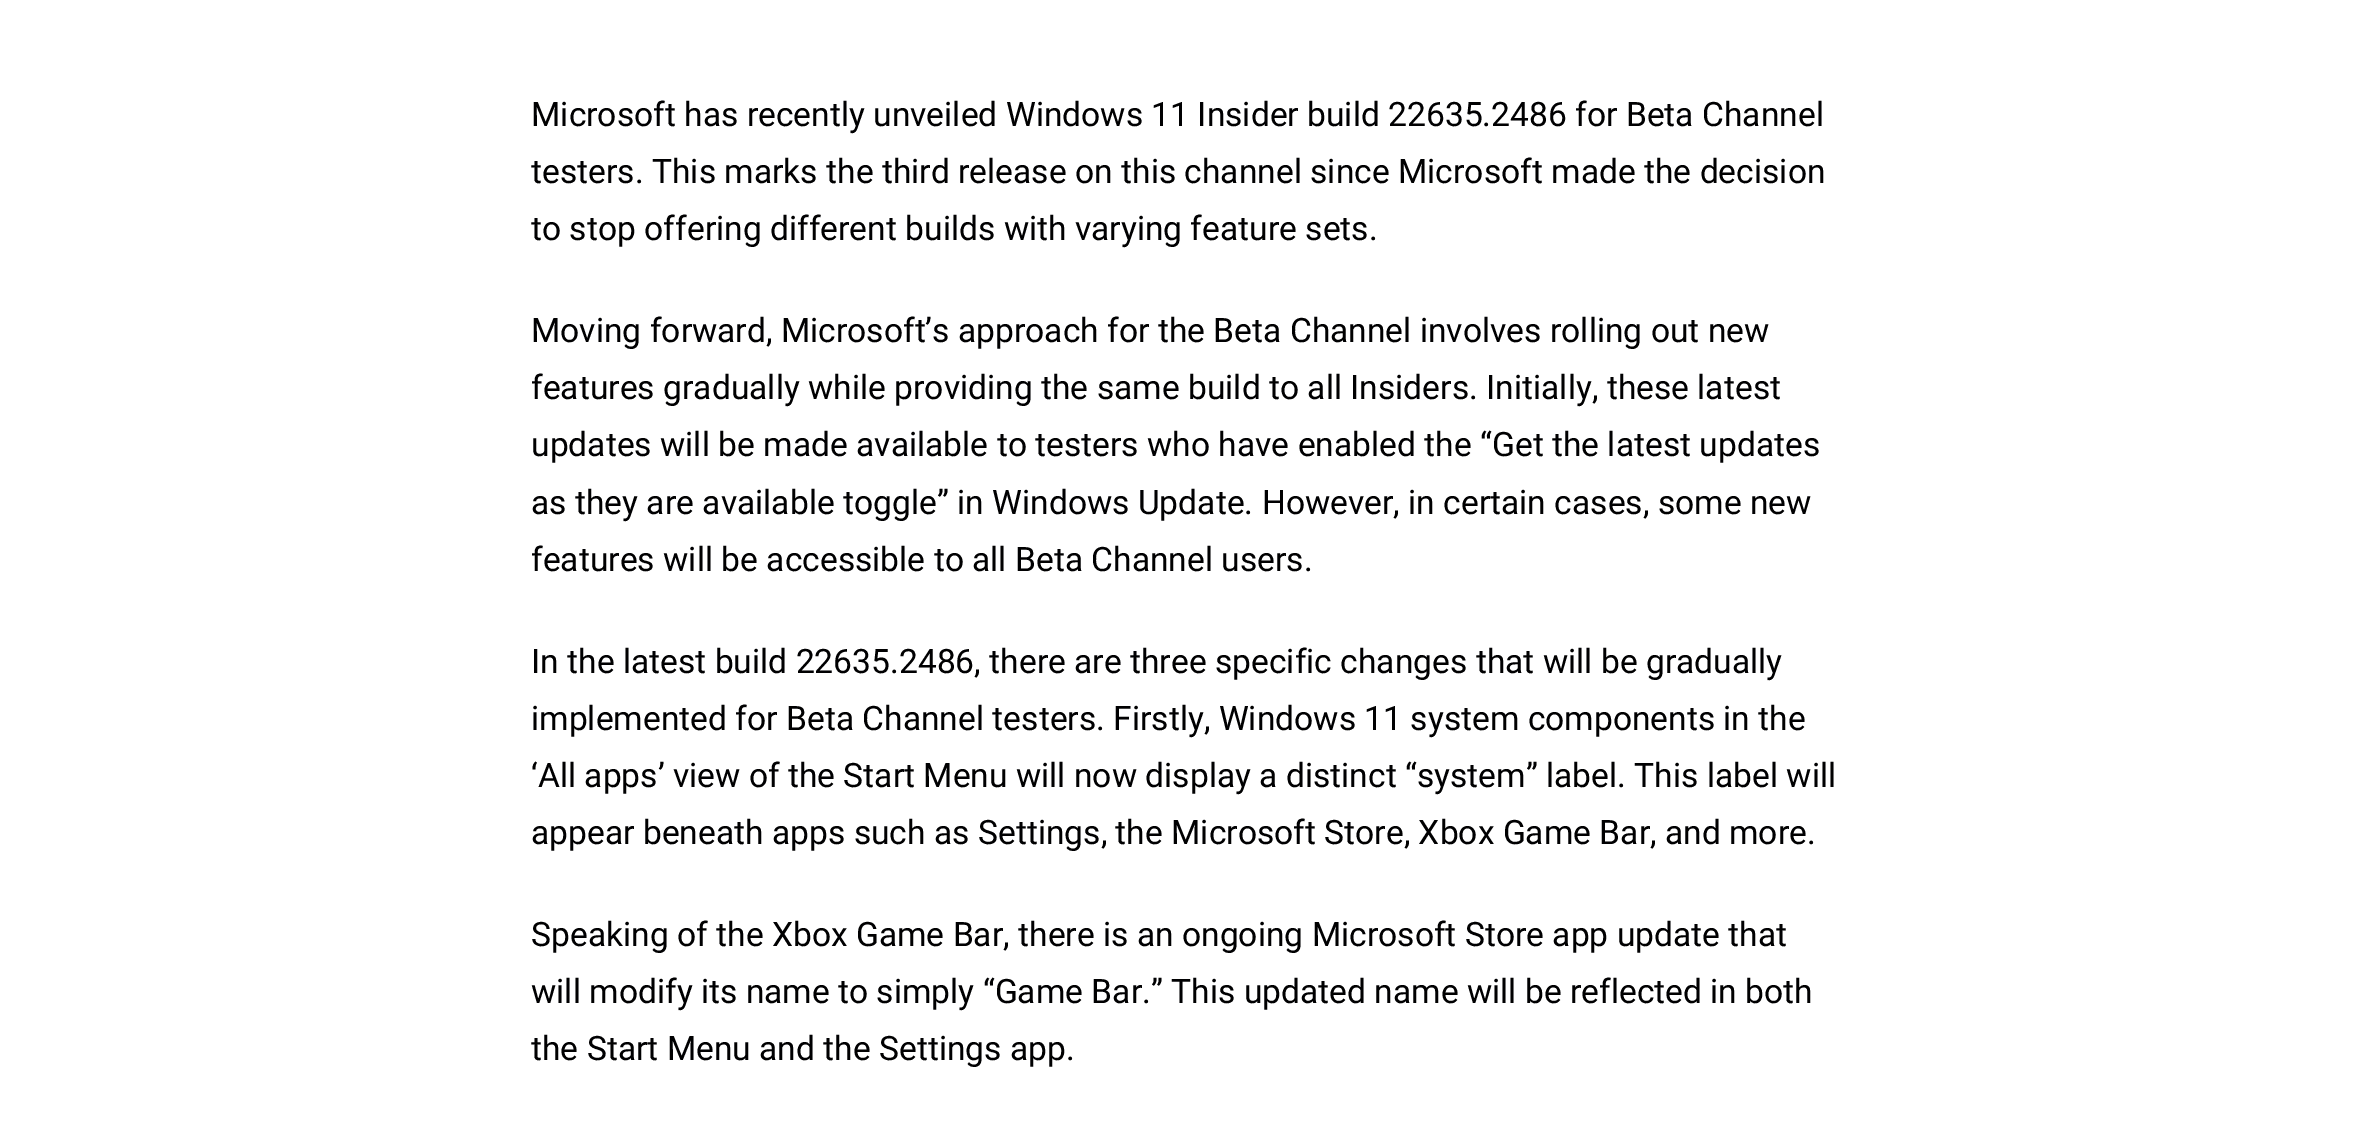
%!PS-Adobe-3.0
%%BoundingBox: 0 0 2370 1139
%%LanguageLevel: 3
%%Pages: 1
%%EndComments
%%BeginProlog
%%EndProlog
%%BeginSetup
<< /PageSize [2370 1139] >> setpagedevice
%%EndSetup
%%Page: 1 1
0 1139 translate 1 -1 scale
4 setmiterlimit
1 setgray
0 0 2370 1139 rectfill
/Roboto-Regular [33.6 0 0 -33.6 0 0] selectfont
0 0 0.004 setrgbcolor
531 126 moveto (Microsoft has recently unveiled Windows 11 Insider build 22635.2486 for Beta Channel) show
531 183 moveto (testers. This marks the third release on this channel since Microsoft made the decision) show
531 240 moveto (to stop offering different builds with varying feature sets.) show
531 342 moveto (Moving forward, Microsoft’s approach for the Beta Channel involves rolling out new) show
531 399 moveto (features gradually while providing the same build to all Insiders. Initially, these latest) show
531 456 moveto (updates will be made available to testers who have enabled the “Get the latest updates) show
531 514 moveto (as they are available toggle” in Windows Update. However, in certain cases, some new) show
531 571 moveto (features will be accessible to all Beta Channel users.) show
531 673 moveto (In the latest build 22635.2486, there are three specific changes that will be gradually) show
531 730 moveto (implemented for Beta Channel testers. Firstly, Windows 11 system components in the) show
531 787 moveto (‘All apps’ view of the Start Menu will now display a distinct “system” label. This label will) show
531 844 moveto (appear beneath apps such as Settings, the Microsoft Store, Xbox Game Bar, and more.) show
531 946 moveto (Speaking of the Xbox Game Bar, there is an ongoing Microsoft Store app update that) show
531 1003 moveto (will modify its name to simply “Game Bar.” This updated name will be reflected in both) show
531 1060 moveto (the Start Menu and the Settings app.) show
showpage
%%EOF
